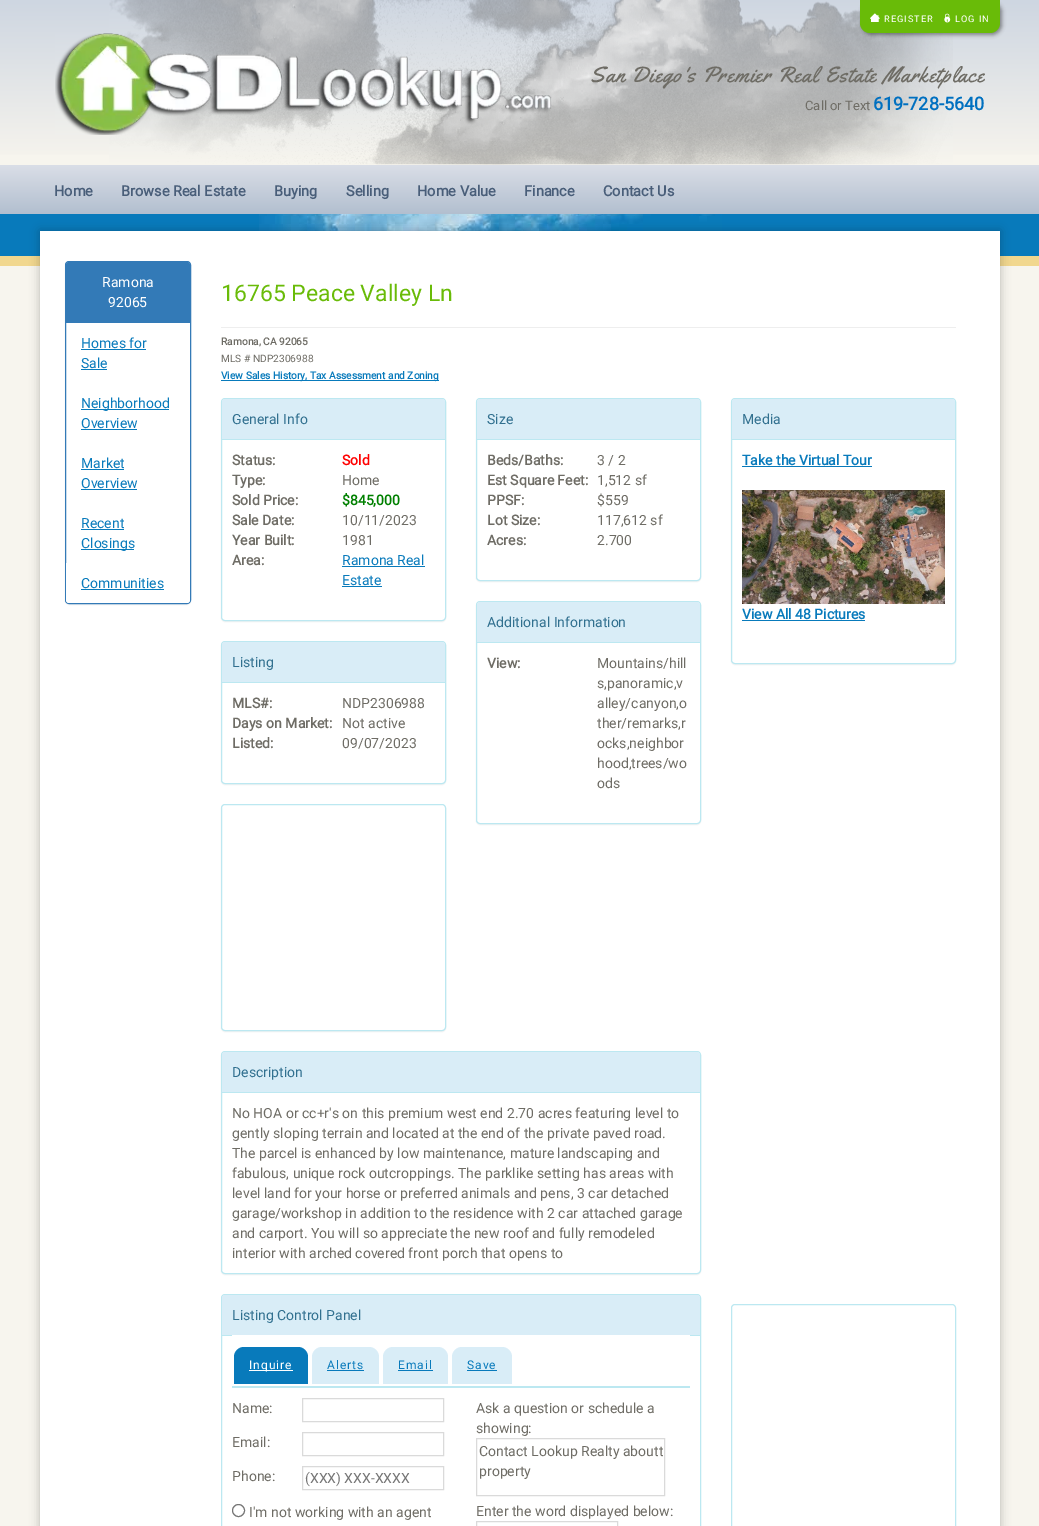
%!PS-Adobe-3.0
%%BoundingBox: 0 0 1039 1526
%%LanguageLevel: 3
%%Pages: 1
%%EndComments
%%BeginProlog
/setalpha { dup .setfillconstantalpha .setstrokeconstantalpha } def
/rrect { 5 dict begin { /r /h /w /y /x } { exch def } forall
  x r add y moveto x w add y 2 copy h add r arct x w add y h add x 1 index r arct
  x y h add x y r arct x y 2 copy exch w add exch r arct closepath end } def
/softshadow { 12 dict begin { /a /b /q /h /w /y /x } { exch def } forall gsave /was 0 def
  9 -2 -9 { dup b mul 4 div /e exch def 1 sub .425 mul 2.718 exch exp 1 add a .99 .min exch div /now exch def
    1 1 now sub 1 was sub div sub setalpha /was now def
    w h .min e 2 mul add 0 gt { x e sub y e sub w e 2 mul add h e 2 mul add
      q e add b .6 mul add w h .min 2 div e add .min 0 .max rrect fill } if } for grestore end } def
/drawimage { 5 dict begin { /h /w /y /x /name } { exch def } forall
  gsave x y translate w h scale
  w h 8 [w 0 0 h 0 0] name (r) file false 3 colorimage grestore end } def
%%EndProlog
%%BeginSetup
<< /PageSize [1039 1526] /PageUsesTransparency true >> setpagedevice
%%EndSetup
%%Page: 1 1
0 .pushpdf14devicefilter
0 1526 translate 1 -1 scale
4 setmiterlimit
0.969 0.961 0.933 setrgbcolor
0 0 1039 1526 rectfill
gsave newpath 0 0 moveto 1039 0 lineto 1039 155 lineto 0 155 lineto closepath clip newpath
<< /ShadingType 2 /ColorSpace /DeviceRGB /Coords [520 0 520 165] /Extend [true true] /Function << /FunctionType 2 /Domain [0 1] /C0 [0.808 0.839 0.882] /C1 [0.969 0.961 0.933] /N 1 >> >> shfill grestore
(images/1.raw) 109 0 844 165 drawimage
0 setgray
862 2 140 33 10 2 0.4 softshadow
0.412 0.733 0.031 setrgbcolor
newpath 860 0 moveto 1000 0 lineto 1000 23 lineto 1000 28.5 995.5 33 990 33 curveto 870 33 lineto 864.5 33 860 28.5 860 23 curveto closepath fill
(images/2.raw) 870 13 10 9 drawimage
(images/3.raw) 944 13 7 10 drawimage
(images/4.raw) 55 33 497 102 drawimage
gsave newpath 0 165 moveto 1039 165 lineto 1039 214 lineto 0 214 lineto closepath clip newpath
<< /ShadingType 2 /ColorSpace /DeviceRGB /Coords [520 165 520 214] /Extend [true true] /Function << /FunctionType 2 /Domain [0 1] /C0 [0.855 0.871 0.906] /C1 [0.698 0.749 0.812] /N 1 >> >> shfill grestore
0.031 0.478 0.733 setrgbcolor
0 214 1039 42 rectfill
0.945 0.843 0.557 setrgbcolor
0 256 1039 10 rectfill
(images/5.raw) 259 214 463 17 drawimage
0 setgray
40 231 960 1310 0 5 0.25 softshadow
1 setgray
40 231 960 1295 rectfill
0 setgray
65 262 126 343 4 0.5 0.05 softshadow
1 setgray
65.5 261.5 125 342 3.5 rrect gsave fill grestore
0.2 0.478 0.718 setrgbcolor
stroke
newpath 69 262 moveto 187 262 lineto 188.5 262 190 263.5 190 265 curveto 190 323 lineto 66 323 lineto 66 265 lineto 66 263.5 67.5 262 69 262 curveto closepath fill
0.031 0.478 0.733 setrgbcolor
81 349 65 1 rectfill
81 369 26 1 rectfill
81 409 88 1 rectfill
81 429 56 1 rectfill
81 469 43 1 rectfill
81 489 56 1 rectfill
81 529 43 1 rectfill
81 549 53 1 rectfill
1 setgray
newpath 66 563 moveto 190 563 lineto 190 600 lineto 190 601.5 188.5 603 187 603 curveto 69 603 lineto 67.5 603 66 601.5 66 600 curveto closepath fill
0.031 0.478 0.733 setrgbcolor
81 589 83 1 rectfill
0.933 setgray
221 327 735 1 rectfill
0.031 0.478 0.733 setrgbcolor
221 380 218 1 rectfill
0 setgray
221 399 225 223 4 0.5 0.05 softshadow
1 setgray
221.5 398.5 224 222 3.5 rrect gsave fill grestore
0.737 0.91 0.945 setrgbcolor
stroke
0.851 0.929 0.969 setrgbcolor
newpath 225 399 moveto 442 399 lineto 443.5 399 445 400.5 445 402 curveto 445 440 lineto 222 440 lineto 222 402 lineto 222 400.5 223.5 399 225 399 curveto closepath fill
0.737 0.91 0.945 setrgbcolor
222 439 223 1 rectfill
0.031 0.478 0.733 setrgbcolor
342 566 83 1 rectfill
342 586 40 1 rectfill
0 setgray
221 642 225 143 4 0.5 0.05 softshadow
1 setgray
221.5 641.5 224 142 3.5 rrect gsave fill grestore
0.737 0.91 0.945 setrgbcolor
stroke
0.851 0.929 0.969 setrgbcolor
newpath 225 642 moveto 442 642 lineto 443.5 642 445 643.5 445 645 curveto 445 683 lineto 222 683 lineto 222 645 lineto 222 643.5 223.5 642 225 642 curveto closepath fill
0.737 0.91 0.945 setrgbcolor
222 682 223 1 rectfill
0 setgray
221 805 225 227 4 0.5 0.05 softshadow
1 setgray
221.5 804.5 224 226 3.5 rrect gsave fill grestore
0.737 0.91 0.945 setrgbcolor
stroke
0 setgray
476 399 225 183 4 0.5 0.05 softshadow
1 setgray
476.5 398.5 224 182 3.5 rrect gsave fill grestore
0.737 0.91 0.945 setrgbcolor
stroke
0.851 0.929 0.969 setrgbcolor
newpath 480 399 moveto 697 399 lineto 698.5 399 700 400.5 700 402 curveto 700 440 lineto 477 440 lineto 477 402 lineto 477 400.5 478.5 399 480 399 curveto closepath fill
0.737 0.91 0.945 setrgbcolor
477 439 223 1 rectfill
0 setgray
476 602 225 223 4 0.5 0.05 softshadow
1 setgray
476.5 601.5 224 222 3.5 rrect gsave fill grestore
0.737 0.91 0.945 setrgbcolor
stroke
0.851 0.929 0.969 setrgbcolor
newpath 480 602 moveto 697 602 lineto 698.5 602 700 603.5 700 605 curveto 700 643 lineto 477 643 lineto 477 605 lineto 477 603.5 478.5 602 480 602 curveto closepath fill
0.737 0.91 0.945 setrgbcolor
477 642 223 1 rectfill
0 setgray
221 1052 480 223 4 0.5 0.05 softshadow
1 setgray
221.5 1051.5 479 222 3.5 rrect gsave fill grestore
0.737 0.91 0.945 setrgbcolor
stroke
0.851 0.929 0.969 setrgbcolor
newpath 225 1052 moveto 697 1052 lineto 698.5 1052 700 1053.5 700 1055 curveto 700 1093 lineto 222 1093 lineto 222 1055 lineto 222 1053.5 223.5 1052 225 1052 curveto closepath fill
0.737 0.91 0.945 setrgbcolor
222 1092 478 1 rectfill
221.5 1294.5 479 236 3.5 rrect stroke
0.851 0.929 0.969 setrgbcolor
newpath 225 1295 moveto 697 1295 lineto 698.5 1295 700 1296.5 700 1298 curveto 700 1336 lineto 222 1336 lineto 222 1298 lineto 222 1296.5 223.5 1295 225 1295 curveto closepath fill
0.737 0.91 0.945 setrgbcolor
222 1335 478 1 rectfill
232 1386 458 2 rectfill
0.031 0.478 0.733 setrgbcolor
newpath 244 1347 moveto 298 1347 lineto 303.5 1347 308 1351.5 308 1357 curveto 308 1384 lineto 234 1384 lineto 234 1357 lineto 234 1351.5 238.5 1347 244 1347 curveto closepath fill
1 setgray
249 1370 44 1 rectfill
0.851 0.929 0.969 setrgbcolor
newpath 322 1347 moveto 369 1347 lineto 374.5 1347 379 1351.5 379 1357 curveto 379 1384 lineto 312 1384 lineto 312 1357 lineto 312 1351.5 316.5 1347 322 1347 curveto closepath fill
0.031 0.478 0.733 setrgbcolor
327 1370 37 1 rectfill
0.851 0.929 0.969 setrgbcolor
newpath 393 1347 moveto 438 1347 lineto 443.5 1347 448 1351.5 448 1357 curveto 448 1384 lineto 383 1384 lineto 383 1357 lineto 383 1351.5 387.5 1347 393 1347 curveto closepath fill
0.031 0.478 0.733 setrgbcolor
398 1370 35 1 rectfill
0.851 0.929 0.969 setrgbcolor
newpath 462 1347 moveto 502 1347 lineto 507.5 1347 512 1351.5 512 1357 curveto 512 1384 lineto 452 1384 lineto 452 1357 lineto 452 1351.5 456.5 1347 462 1347 curveto closepath fill
0.031 0.478 0.733 setrgbcolor
467 1370 30 1 rectfill
1 setgray
232 1335 458 1 rectfill
0.855 setgray
302.5 1398.5 141 23 rectstroke
302.5 1432.5 141 23 rectstroke
302.5 1466.5 141 23 rectstroke
0.463 setgray
newpath 238.5 1510.5 6 0 360 arc closepath stroke
0.855 setgray
476.5 1438.5 188 57 rectstroke
476.5 1521.5 141 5 rectstroke
0 setgray
731 399 225 266 4 0.5 0.05 softshadow
1 setgray
731.5 398.5 224 265 3.5 rrect gsave fill grestore
0.737 0.91 0.945 setrgbcolor
stroke
0.851 0.929 0.969 setrgbcolor
newpath 735 399 moveto 952 399 lineto 953.5 399 955 400.5 955 402 curveto 955 440 lineto 732 440 lineto 732 402 lineto 732 400.5 733.5 399 735 399 curveto closepath fill
0.737 0.91 0.945 setrgbcolor
732 439 223 1 rectfill
0.031 0.478 0.733 setrgbcolor
742 466 130 1 rectfill
(images/6.raw) 742 490 203 114 drawimage
742 620 123 1 rectfill
0.737 0.91 0.945 setrgbcolor
731.5 1304.5 224 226 3.5 rrect stroke
/Roboto-Regular [9.25 0 0 -9.25 0 0] selectfont
1 setgray
884 22 moveto 1 0 (REGISTER) ashow
955 22 moveto 1 0 (LOG IN) ashow
/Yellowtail-Regular [22 0 0 -22 0 0] selectfont
0.431 0.424 0.396 setrgbcolor
590 82 moveto 1 0 (San Diego's Premier Real Estate Marketplace) ashow
/Roboto-Regular [13 0 0 -13 0 0] selectfont
805 110 moveto (Call or Text) show
/Roboto-Bold [18 0 0 -18 0 0] selectfont
0 0.439 0.753 setrgbcolor
873 110 moveto (619-728-5640) show
/Roboto-Bold [14.5 0 0 -14.5 0 0] selectfont
0.286 0.369 0.475 setrgbcolor
54 196 moveto (Home) show
121 196 moveto (Browse Real Estate) show
274 196 moveto (Buying) show
346 196 moveto (Selling) show
417 196 moveto (Home Value) show
524 196 moveto (Finance) show
603 196 moveto (Contact Us) show
/Roboto-Regular [14 0 0 -14 0 0] selectfont
1 setgray
102 287 moveto (Ramona) show
108 307 moveto (92065) show
0.031 0.478 0.733 setrgbcolor
81 348 moveto (Homes for) show
81 368 moveto (Sale) show
81 408 moveto (Neighborhood) show
81 428 moveto (Overview) show
81 468 moveto (Market) show
81 488 moveto (Overview) show
81 528 moveto (Recent) show
81 548 moveto (Closings) show
81 588 moveto (Communities) show
/Roboto-Regular [23 0 0 -23 0 0] selectfont
0.412 0.733 0.031 setrgbcolor
221 301 moveto (16765 Peace Valley Ln) show
/Roboto-Bold [10.2 0 0 -10.2 0 0] selectfont
0.431 0.424 0.396 setrgbcolor
221 345 moveto (Ramona, CA 92065) show
/Roboto-Regular [10.2 0 0 -10.2 0 0] selectfont
221 362 moveto (MLS # NDP2306988) show
/Roboto-Bold [10.2 0 0 -10.2 0 0] selectfont
0.031 0.478 0.733 setrgbcolor
221 379 moveto (View Sales History, Tax Assessment and Zoning) show
/Roboto-Regular [14 0 0 -14 0 0] selectfont
0.192 0.439 0.561 setrgbcolor
232 424 moveto (General Info) show
/Roboto-Bold [14 0 0 -14 0 0] selectfont
0.431 0.424 0.396 setrgbcolor
232 465 moveto (Status:) show
1 0 0 setrgbcolor
342 465 moveto (Sold) show
0.431 0.424 0.396 setrgbcolor
232 485 moveto (Type:) show
/Roboto-Regular [14 0 0 -14 0 0] selectfont
342 485 moveto (Home) show
/Roboto-Bold [14 0 0 -14 0 0] selectfont
232 505 moveto (Sold Price:) show
0 0.502 0 setrgbcolor
342 505 moveto ($845,000) show
0.431 0.424 0.396 setrgbcolor
232 525 moveto (Sale Date:) show
/Roboto-Regular [14 0 0 -14 0 0] selectfont
342 525 moveto (10/11/2023) show
/Roboto-Bold [14 0 0 -14 0 0] selectfont
232 545 moveto (Year Built:) show
/Roboto-Regular [14 0 0 -14 0 0] selectfont
342 545 moveto (1981) show
/Roboto-Bold [14 0 0 -14 0 0] selectfont
232 565 moveto (Area:) show
/Roboto-Regular [14 0 0 -14 0 0] selectfont
0.031 0.478 0.733 setrgbcolor
342 565 moveto (Ramona Real) show
342 585 moveto (Estate) show
0.192 0.439 0.561 setrgbcolor
232 667 moveto (Listing) show
/Roboto-Bold [14 0 0 -14 0 0] selectfont
0.431 0.424 0.396 setrgbcolor
232 708 moveto (MLS#:) show
/Roboto-Regular [14 0 0 -14 0 0] selectfont
342 708 moveto (NDP2306988) show
/Roboto-Bold [14 0 0 -14 0 0] selectfont
232 728 moveto (Days on Market:) show
/Roboto-Regular [14 0 0 -14 0 0] selectfont
342 728 moveto (Not active) show
/Roboto-Bold [14 0 0 -14 0 0] selectfont
232 748 moveto (Listed:) show
/Roboto-Regular [14 0 0 -14 0 0] selectfont
342 748 moveto (09/07/2023) show
0.192 0.439 0.561 setrgbcolor
487 424 moveto (Size) show
/Roboto-Bold [14 0 0 -14 0 0] selectfont
0.431 0.424 0.396 setrgbcolor
487 465 moveto (Beds/Baths:) show
/Roboto-Regular [14 0 0 -14 0 0] selectfont
597 465 moveto (3 / 2) show
/Roboto-Bold [14 0 0 -14 0 0] selectfont
487 485 moveto (Est Square Feet:) show
/Roboto-Regular [14 0 0 -14 0 0] selectfont
597 485 moveto (1,512 sf) show
/Roboto-Bold [14 0 0 -14 0 0] selectfont
487 505 moveto (PPSF:) show
/Roboto-Regular [14 0 0 -14 0 0] selectfont
597 505 moveto ($559) show
/Roboto-Bold [14 0 0 -14 0 0] selectfont
487 525 moveto (Lot Size:) show
/Roboto-Regular [14 0 0 -14 0 0] selectfont
597 525 moveto (117,612 sf) show
/Roboto-Bold [14 0 0 -14 0 0] selectfont
487 545 moveto (Acres:) show
/Roboto-Regular [14 0 0 -14 0 0] selectfont
597 545 moveto (2.700) show
0.192 0.439 0.561 setrgbcolor
487 627 moveto (Additional Information) show
/Roboto-Bold [14 0 0 -14 0 0] selectfont
0.431 0.424 0.396 setrgbcolor
487 668 moveto (View:) show
/Roboto-Regular [14 0 0 -14 0 0] selectfont
597 668 moveto (Mountains/hill) show
597 688 moveto (s,panoramic,v) show
597 708 moveto (alley/canyon,o) show
597 728 moveto (ther/remarks,r) show
597 748 moveto (ocks,neighbor) show
597 768 moveto (hood,trees/wo) show
597 788 moveto (ods) show
0.192 0.439 0.561 setrgbcolor
232 1077 moveto (Description) show
0.431 0.424 0.396 setrgbcolor
232 1118 moveto (No HOA or cc+r's on this premium west end 2.70 acres featuring level to) show
232 1138 moveto (gently sloping terrain and located at the end of the private paved road.) show
232 1158 moveto (The parcel is enhanced by low maintenance, mature landscaping and) show
232 1178 moveto (fabulous, unique rock outcroppings. The parklike setting has areas with) show
232 1198 moveto (level land for your horse or preferred animals and pens, 3 car detached) show
232 1218 moveto (garage/workshop in addition to the residence with 2 car attached garage) show
232 1238 moveto (and carport. You will so appreciate the new roof and fully remodeled) show
232 1258 moveto (interior with arched covered front porch that opens to) show
0.192 0.439 0.561 setrgbcolor
232 1320 moveto (Listing Control Panel) show
/Roboto-Regular [12 0 0 -12 0 0] selectfont
1 setgray
249 1369 moveto 1 0 (Inquire) ashow
0.031 0.478 0.733 setrgbcolor
327 1369 moveto 1 0 (Alerts) ashow
398 1369 moveto 1 0 (Email) ashow
467 1369 moveto 1 0 (Save) ashow
/Roboto-Regular [14 0 0 -14 0 0] selectfont
0.431 0.424 0.396 setrgbcolor
232 1413 moveto (Name:) show
232 1447 moveto (Email:) show
232 1481 moveto (Phone:) show
0.459 setgray
305 1483 moveto (\(XXX\) XXX-XXXX) show
0.431 0.424 0.396 setrgbcolor
249 1517 moveto (I'm not working with an agent) show
476 1413 moveto (Ask a question or schedule a) show
476 1433 moveto (showing:) show
479 1456 moveto (Contact Lookup Realty aboutt) show
479 1476 moveto (property) show
476 1516 moveto (Enter the word displayed below:) show
0.192 0.439 0.561 setrgbcolor
742 424 moveto (Media) show
/Roboto-Bold [14 0 0 -14 0 0] selectfont
0.031 0.478 0.733 setrgbcolor
742 465 moveto (Take the Virtual Tour) show
742 619 moveto (View All 48 Pictures) show
.poppdf14devicefilter showpage
%%EOF
